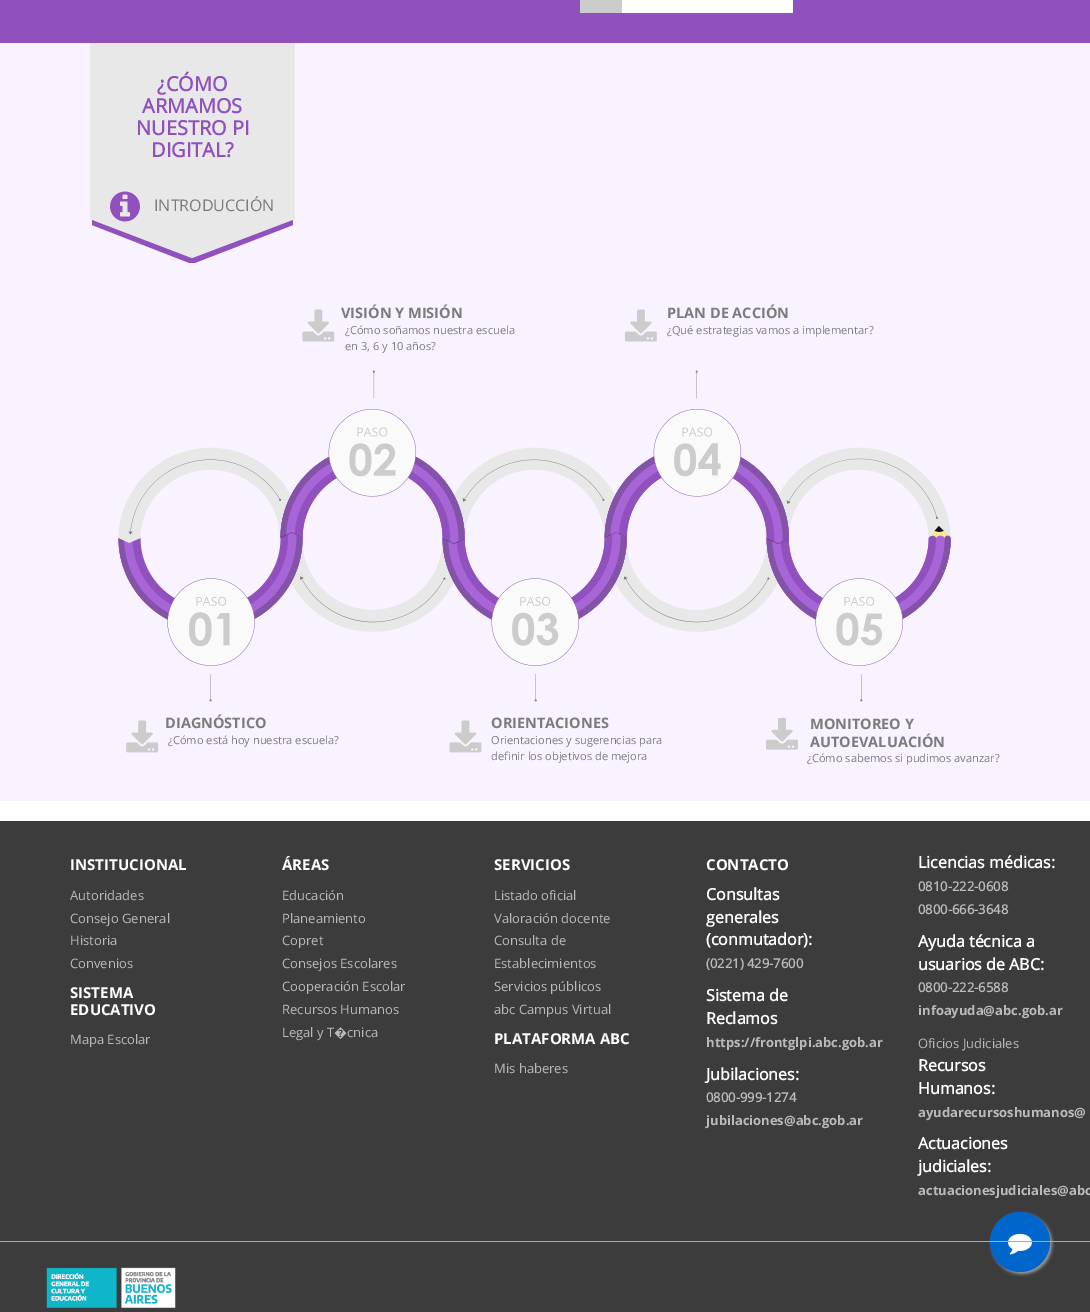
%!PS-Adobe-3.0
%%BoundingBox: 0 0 1090 1312
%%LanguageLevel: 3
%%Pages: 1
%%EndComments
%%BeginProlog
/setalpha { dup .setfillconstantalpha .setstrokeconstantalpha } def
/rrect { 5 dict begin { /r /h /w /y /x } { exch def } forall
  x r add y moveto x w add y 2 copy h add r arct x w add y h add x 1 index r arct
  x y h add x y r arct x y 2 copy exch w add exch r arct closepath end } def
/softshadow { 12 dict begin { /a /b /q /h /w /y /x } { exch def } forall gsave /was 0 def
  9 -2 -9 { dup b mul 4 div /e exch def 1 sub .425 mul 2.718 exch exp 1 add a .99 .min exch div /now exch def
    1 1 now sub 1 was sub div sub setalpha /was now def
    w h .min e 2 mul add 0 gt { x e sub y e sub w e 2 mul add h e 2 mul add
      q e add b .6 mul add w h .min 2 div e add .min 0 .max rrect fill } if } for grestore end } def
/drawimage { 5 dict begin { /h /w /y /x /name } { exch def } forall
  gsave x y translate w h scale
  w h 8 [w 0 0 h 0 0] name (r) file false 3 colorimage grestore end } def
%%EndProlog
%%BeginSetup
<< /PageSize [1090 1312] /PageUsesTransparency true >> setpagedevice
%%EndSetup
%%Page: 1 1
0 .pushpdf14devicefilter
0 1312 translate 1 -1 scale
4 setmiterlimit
1 setgray
0 0 1090 1312 rectfill
0.976 0.949 1 setrgbcolor
0 43 1090 758 rectfill
0.565 0.318 0.749 setrgbcolor
0 0 1090 43 rectfill
1 setgray
622 0 171 13 rectfill
0.8 setgray
580 0 42 13 rectfill
0.914 0.91 0.91 setrgbcolor
90 43 205 174 rectfill
gsave
90 217 205 46 rectclip
0.565 0.318 0.749 setrgbcolor
newpath 293 225 moveto 192 264 lineto 92 225 lineto 92 219 lineto 293 219 lineto closepath fill
grestore
newpath 295 219 moveto 192 258 lineto 90 219 lineto 90 217 lineto 295 217 lineto closepath fill
(images/1.raw) 110 191 30 31 drawimage
(images/2.raw) 118 309 833 444 drawimage
0.235 setgray
0 821 1090 491 rectfill
0.6 setgray
992 1214 60 60 30 1.5 1 softshadow
0 0.4 0.8 setrgbcolor
newpath 1020 1242 30 0 360 arc closepath fill
(images/3.raw) 1008 1233 24 22 drawimage
0.596 0.788 0.231 setrgbcolor
0 1241 1090 1 rectfill
(images/4.raw) 46 1267 130 41 drawimage
/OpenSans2-Bold [20 0 0 -20 0 0] selectfont
0.565 0.318 0.749 setrgbcolor
157 91 moveto (¿CÓMO) show
142 113 moveto (ARMAMOS) show
136 135 moveto (NUESTRO PI) show
151 157 moveto (DIGITAL?) show
/OpenSans2-Regular [16 0 0 -16 0 0] selectfont
0.486 0.486 0.49 setrgbcolor
154 211 moveto (INTRODUCCIÓN) show
/OpenSans-Bold [14.5 0 0 -14.5 0 0] selectfont
341 318 moveto (VISIÓN Y MISIÓN) show
667 318 moveto (PLAN DE ACCIÓN) show
/OpenSans-Regular [11.1 0 0 -11.1 0 0] selectfont
345 334 moveto (¿Cómo soñamos nuestra escuela) show
667 334 moveto (¿Qué estrategias vamos a implementar?) show
345 350 moveto (en 3, 6 y 10 años?) show
/OpenSans-Bold [14.5 0 0 -14.5 0 0] selectfont
165 728 moveto (DIAGNÓSTICO) show
491 728 moveto (ORIENTACIONES) show
810 729 moveto (MONITOREO Y) show
/OpenSans-Regular [11.1 0 0 -11.1 0 0] selectfont
168 744 moveto (¿Cómo está hoy nuestra escuela?) show
491 744 moveto (Orientaciones y sugerencias para) show
/OpenSans-Bold [14.5 0 0 -14.5 0 0] selectfont
810 747 moveto (AUTOEVALUACIÓN) show
/OpenSans-Regular [11.1 0 0 -11.1 0 0] selectfont
491 760 moveto (definir los objetivos de mejora) show
807 762 moveto (¿Cómo sabemos si pudimos avanzar?) show
/OpenSans-Bold [15 0 0 -15 0 0] selectfont
1 setgray
70 870 moveto (INSTITUCIONAL) show
/OpenSans-Regular [13 0 0 -13 0 0] selectfont
0.729 setgray
70 900 moveto (Autoridades) show
70 923 moveto (Consejo General) show
70 945 moveto (Historia) show
70 968 moveto (Convenios) show
/OpenSans-Bold [15 0 0 -15 0 0] selectfont
1 setgray
70 998 moveto (SISTEMA) show
70 1015 moveto (EDUCATIVO) show
/OpenSans-Regular [13 0 0 -13 0 0] selectfont
0.729 setgray
70 1044 moveto (Mapa Escolar) show
/OpenSans-Bold [15 0 0 -15 0 0] selectfont
1 setgray
282 870 moveto (ÁREAS) show
/OpenSans-Regular [13 0 0 -13 0 0] selectfont
0.729 setgray
282 900 moveto (Educación) show
282 923 moveto (Planeamiento) show
282 945 moveto (Copret) show
282 968 moveto (Consejos Escolares) show
282 991 moveto (Cooperación Escolar) show
282 1014 moveto (Recursos Humanos) show
282 1037 moveto (Legal y T�cnica) show
/OpenSans-Bold [15 0 0 -15 0 0] selectfont
1 setgray
494 870 moveto (SERVICIOS) show
/OpenSans-Regular [13 0 0 -13 0 0] selectfont
0.729 setgray
494 900 moveto (Listado oficial) show
494 923 moveto (Valoración docente) show
494 945 moveto (Consulta de) show
494 968 moveto (Establecimientos) show
494 991 moveto (Servicios públicos) show
494 1014 moveto (abc Campus Virtual) show
/OpenSans-Bold [15 0 0 -15 0 0] selectfont
1 setgray
494 1044 moveto (PLATAFORMA ABC) show
/OpenSans-Regular [13 0 0 -13 0 0] selectfont
0.729 setgray
494 1073 moveto (Mis haberes) show
/OpenSans-Bold [15 0 0 -15 0 0] selectfont
1 setgray
706 870 moveto (CONTACTO) show
/OpenSans2-Bold [16 0 0 -16 0 0] selectfont
706 900 moveto (Consultas) show
706 923 moveto (generales) show
706 945 moveto (\(conmutador\):) show
/OpenSans2-Bold [13 0 0 -13 0 0] selectfont
0.729 setgray
706 968 moveto (\(0221\) 429-7600) show
/OpenSans2-Bold [16 0 0 -16 0 0] selectfont
1 setgray
706 1001 moveto (Sistema de) show
706 1024 moveto (Reclamos) show
/OpenSans-Bold [13 0 0 -13 0 0] selectfont
0.729 setgray
706 1047 moveto (https://frontglpi.abc.gob.ar) show
/OpenSans2-Bold [16 0 0 -16 0 0] selectfont
1 setgray
706 1080 moveto (Jubilaciones:) show
/OpenSans2-Bold [13 0 0 -13 0 0] selectfont
0.729 setgray
706 1102 moveto (0800-999-1274) show
/OpenSans-Bold [13 0 0 -13 0 0] selectfont
706 1125 moveto (jubilaciones@abc.gob.ar) show
/OpenSans2-Bold [16 0 0 -16 0 0] selectfont
1 setgray
918 868 moveto (Licencias médicas:) show
/OpenSans2-Bold [13 0 0 -13 0 0] selectfont
0.729 setgray
918 891 moveto (0810-222-0608) show
918 914 moveto (0800-666-3648) show
/OpenSans2-Bold [16 0 0 -16 0 0] selectfont
1 setgray
918 947 moveto (Ayuda técnica a) show
918 970 moveto (usuarios de ABC:) show
/OpenSans2-Bold [13 0 0 -13 0 0] selectfont
0.729 setgray
918 992 moveto (0800-222-6588) show
/OpenSans-Bold [13 0 0 -13 0 0] selectfont
918 1015 moveto (infoayuda@abc.gob.ar) show
/OpenSans-Regular [13 0 0 -13 0 0] selectfont
918 1048 moveto (Oficios Judiciales) show
/OpenSans2-Bold [16 0 0 -16 0 0] selectfont
1 setgray
918 1071 moveto (Recursos) show
918 1094 moveto (Humanos:) show
/OpenSans-Bold [13 0 0 -13 0 0] selectfont
0.729 setgray
918 1117 moveto (ayudarecursoshumanos@) show
/OpenSans2-Bold [16 0 0 -16 0 0] selectfont
1 setgray
918 1149 moveto (Actuaciones) show
918 1172 moveto (judiciales:) show
/OpenSans-Bold [13 0 0 -13 0 0] selectfont
0.729 setgray
918 1195 moveto (actuacionesjudiciales@abc) show
.poppdf14devicefilter showpage
%%EOF
